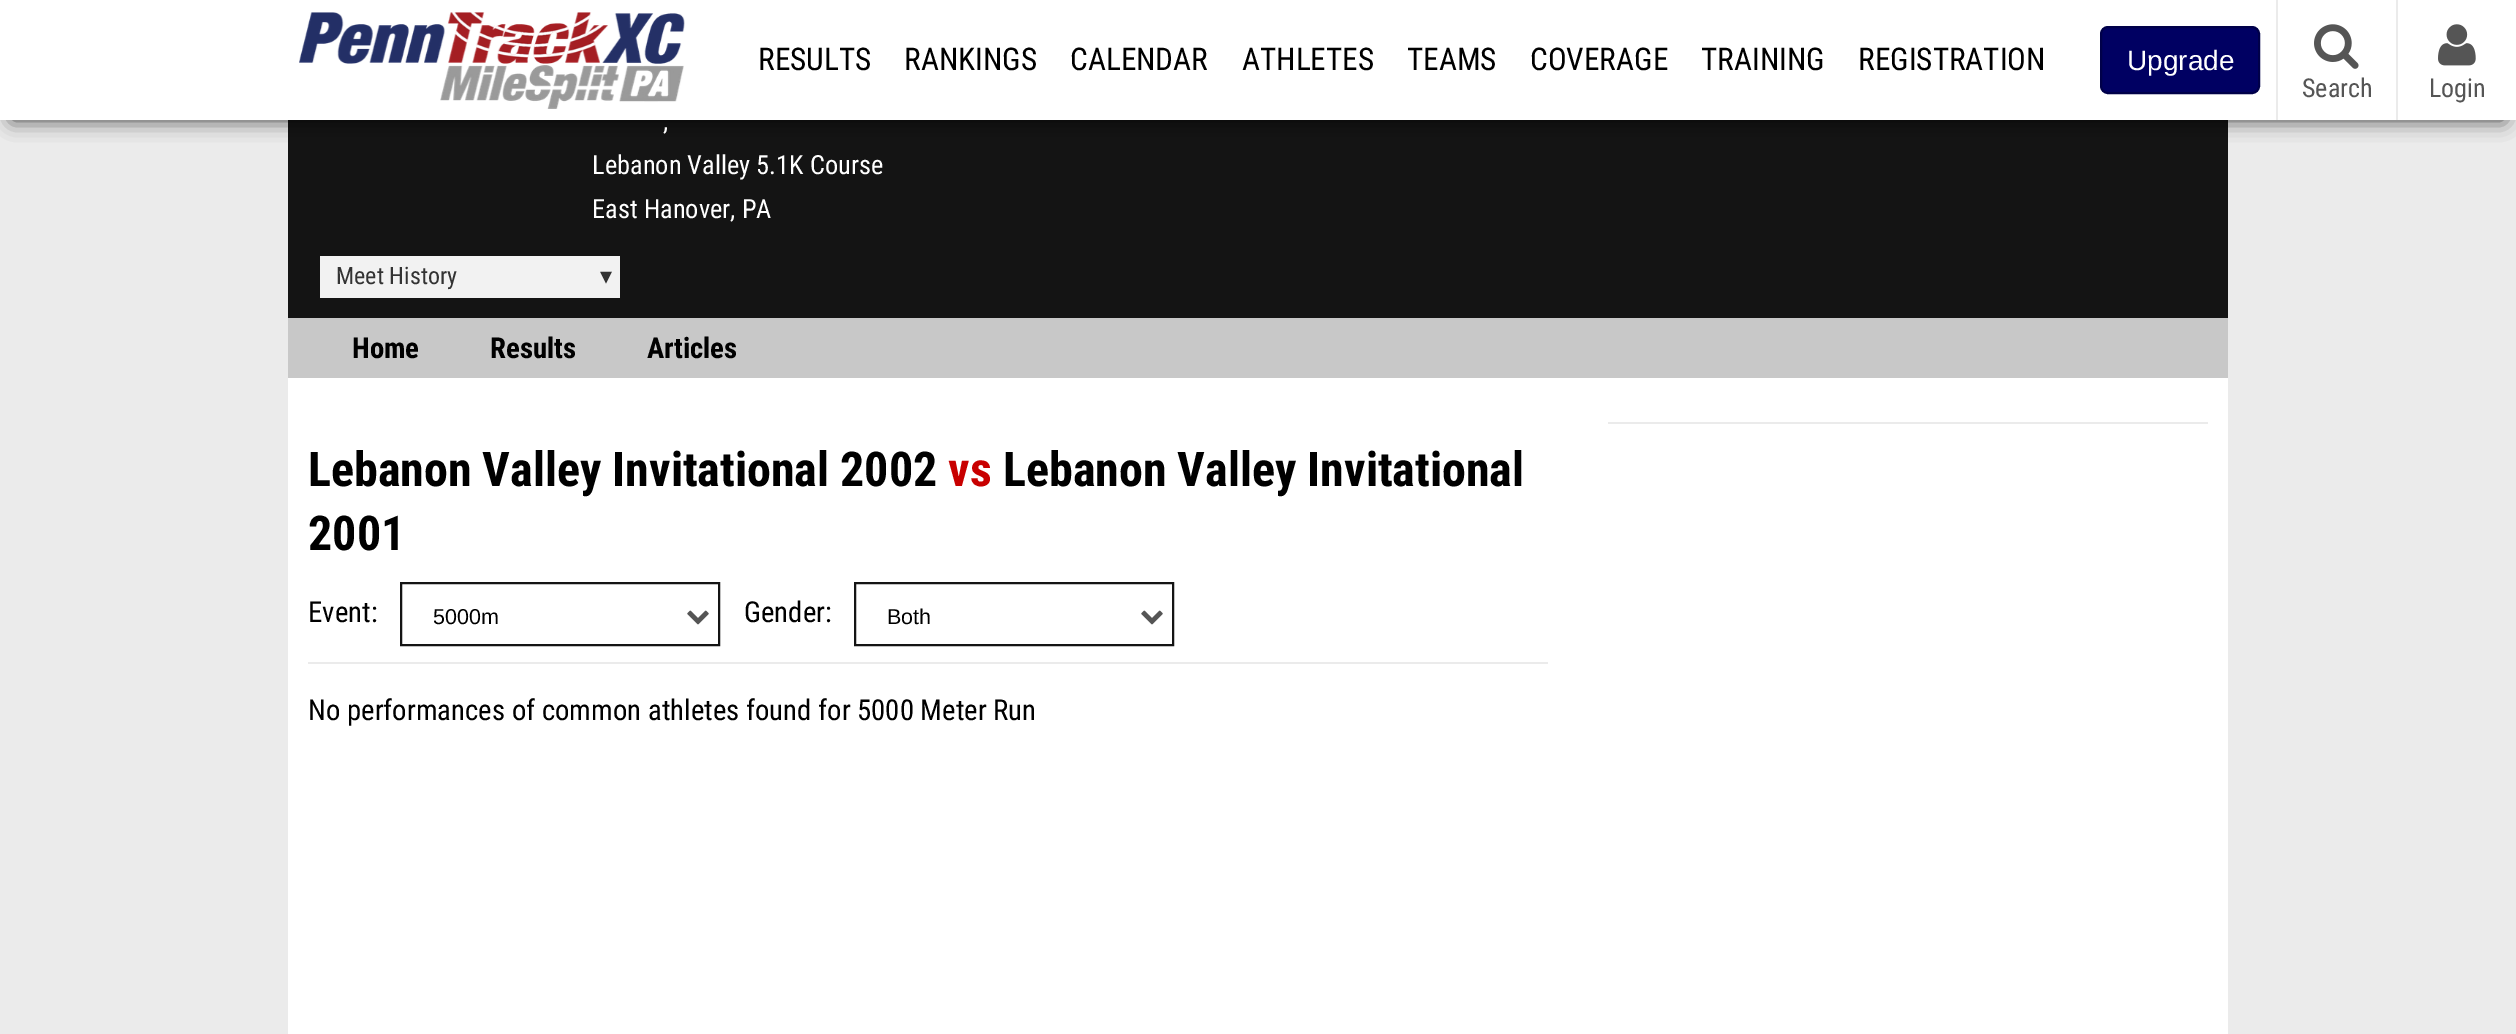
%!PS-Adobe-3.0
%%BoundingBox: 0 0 2516 1034
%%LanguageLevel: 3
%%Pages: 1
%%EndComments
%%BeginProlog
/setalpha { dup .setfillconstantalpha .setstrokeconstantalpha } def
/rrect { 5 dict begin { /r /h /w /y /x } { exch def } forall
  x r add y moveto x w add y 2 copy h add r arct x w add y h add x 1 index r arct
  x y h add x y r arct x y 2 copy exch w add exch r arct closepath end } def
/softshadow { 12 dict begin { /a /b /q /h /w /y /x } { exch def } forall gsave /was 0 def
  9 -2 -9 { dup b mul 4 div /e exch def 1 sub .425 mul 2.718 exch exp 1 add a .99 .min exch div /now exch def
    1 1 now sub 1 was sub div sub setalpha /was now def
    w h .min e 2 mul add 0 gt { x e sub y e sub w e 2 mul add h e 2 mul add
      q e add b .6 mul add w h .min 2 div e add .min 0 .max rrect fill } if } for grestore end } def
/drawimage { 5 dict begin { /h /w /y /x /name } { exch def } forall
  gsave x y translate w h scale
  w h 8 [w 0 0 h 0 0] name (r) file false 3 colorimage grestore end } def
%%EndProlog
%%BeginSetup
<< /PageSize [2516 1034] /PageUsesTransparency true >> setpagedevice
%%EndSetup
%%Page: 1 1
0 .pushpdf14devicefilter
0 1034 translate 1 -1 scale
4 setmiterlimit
0.922 setgray
0 0 2516 1034 rectfill
0.078 setgray
288 120 1940 198 rectfill
0 setgray
12 24 2492 96 0 10 0.75 softshadow
1 setgray
0 0 2516 120 rectfill
(images/1.raw) 299 12 386 97 drawimage
0 0 0.384 setrgbcolor
2101 27 158 66 7 rrect gsave fill grestore
0 0 0.286 setrgbcolor
2 setlinewidth
stroke
0.922 setgray
2276 0 2 120 rectfill
(images/2.raw) 2314 24 45 45 drawimage
2396 0 2 120 rectfill
(images/3.raw) 2438 24 38 42 drawimage
1 setgray
288 378 1940 656 rectfill
0.949 setgray
320 256 300 42 rectfill
0.784 setgray
288 318 1940 60 rectfill
0.922 setgray
1608 422 600 2 rectfill
308 662 1240 2 rectfill
0.078 setgray
401 583 318 62 rectstroke
(images/4.raw) 687 610 22 15 drawimage
855 583 318 62 rectstroke
(images/4.raw) 1141 610 22 15 drawimage
/RobotoCondensed-Regular [31.25 0 0 -31.25 0 0] selectfont
0 setgray
758 70 moveto (RESULTS) show
904 70 moveto (RANKINGS) show
1070 70 moveto (CALENDAR) show
1242 70 moveto (ATHLETES) show
1407 70 moveto (TEAMS) show
1530 70 moveto (COVERAGE) show
1701 70 moveto (TRAINING) show
1858 70 moveto (REGISTRATION) show
/LiberationSans-Regular [28 0 0 -28 0 0] selectfont
1 setgray
2127 70 moveto (Upgrade) show
/RobotoCondensed-Regular [26 0 0 -26 0 0] selectfont
0.333 setgray
2302 97 moveto (Search) show
2429 97 moveto (Login) show
/RobotoCondensed-Regular [26.4 0 0 -26.4 0 0] selectfont
1 setgray
663 130 moveto (,) show
592 174 moveto (Lebanon Valley 5.1K Course) show
592 218 moveto (East Hanover, PA) show
/RobotoCondensed-Regular [24 0 0 -24 0 0] selectfont
0.2 setgray
336 284 moveto (Meet History) show
/DejaVuSans-Regular [24 0 0 -24 0 0] selectfont
600 284 moveto (▾) show
/RobotoCondensed-Bold [28.8 0 0 -28.8 0 0] selectfont
0 setgray
352 358 moveto (Home) show
490 358 moveto (Results) show
647 358 moveto (Articles) show
/RobotoCondensed-Bold [48 0 0 -48 0 0] selectfont
308 486 moveto (Lebanon Valley Invitational 2002) show
0.784 0 0 setrgbcolor
948 486 moveto (vs) show
0 setgray
1003 486 moveto (Lebanon Valley Invitational) show
308 550 moveto (2001) show
/RobotoCondensed-Regular [28.8 0 0 -28.8 0 0] selectfont
308 622 moveto (Event:) show
/LiberationSans-Regular [21.5 0 0 -21.5 0 0] selectfont
433 624 moveto (5000m) show
/RobotoCondensed-Regular [28.8 0 0 -28.8 0 0] selectfont
744 622 moveto (Gender:) show
/LiberationSans-Regular [21.5 0 0 -21.5 0 0] selectfont
887 624 moveto (Both) show
/RobotoCondensed-Regular [28.8 0 0 -28.8 0 0] selectfont
308 720 moveto (No performances of common athletes found for 5000 Meter Run) show
.poppdf14devicefilter showpage
%%EOF
